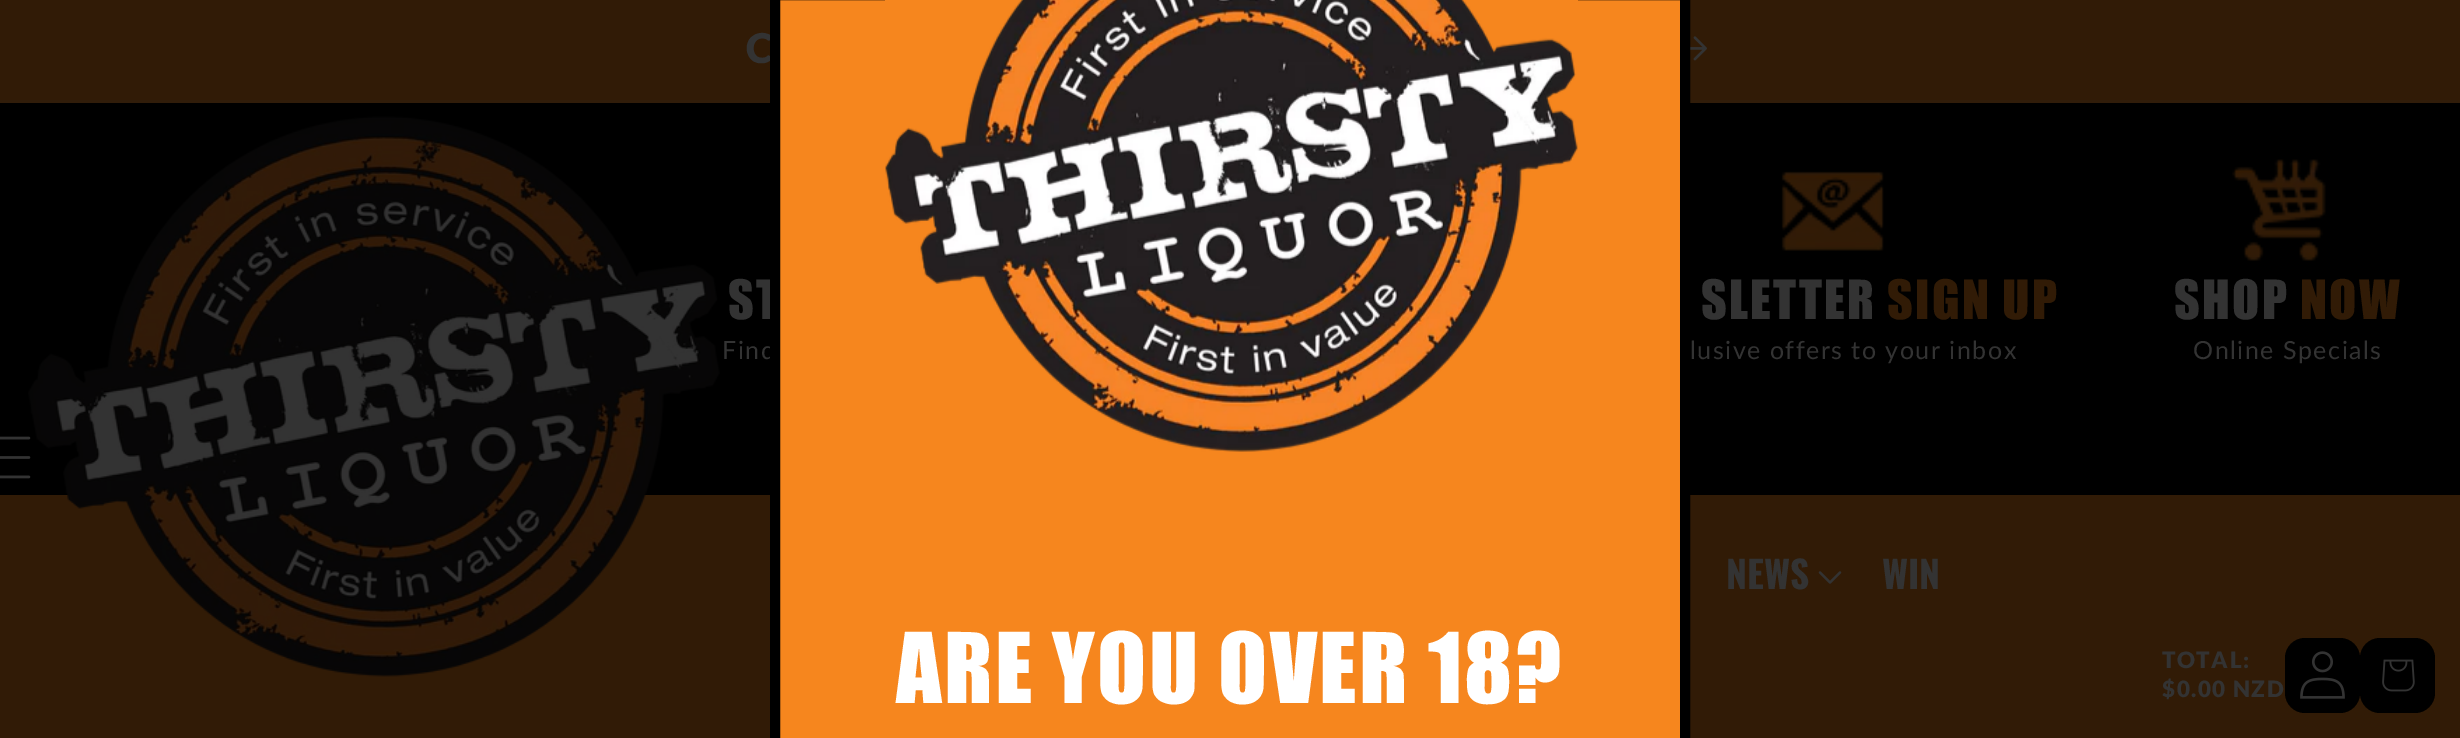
%!PS-Adobe-3.0
%%BoundingBox: 0 0 2460 738
%%LanguageLevel: 3
%%Pages: 1
%%EndComments
%%BeginProlog
/rrect { 5 dict begin { /r /h /w /y /x } { exch def } forall
  x r add y moveto x w add y 2 copy h add r arct x w add y h add x 1 index r arct
  x y h add x y r arct x y 2 copy exch w add exch r arct closepath end } def
/drawimage { 5 dict begin { /h /w /y /x /name } { exch def } forall
  gsave x y translate w h scale
  w h 8 [w 0 0 h 0 0] name (r) file false 3 colorimage grestore end } def
%%EndProlog
%%BeginSetup
<< /PageSize [2460 738] >> setpagedevice
%%EndSetup
%%Page: 1 1
0 738 translate 1 -1 scale
4 setmiterlimit
0.192 0.106 0.024 setrgbcolor
0 0 2460 738 rectfill
0.192 0.114 0.039 setrgbcolor
0 100 2460 3 rectfill
(images/1.raw) 1690 36 17 25 drawimage
0 setgray
0 103 2460 392 rectfill
(images/2.raw) 1781 171 103 80 drawimage
(images/3.raw) 2232 159 94 102 drawimage
(images/4.raw) 0 436 31 43 drawimage
(images/5.raw) 28 116 692 561 drawimage
(images/6.raw) 1818 571 24 13 drawimage
2285 638 75 75 20 rrect fill
(images/7.raw) 2300 651 45 48 drawimage
2360 638 75 75 20 rrect fill
(images/8.raw) 2382 659 33 33 drawimage
/Lato-Black [41 0 0 -41 0 0] selectfont
0.2 setgray
746 63 moveto 2 0 (C) ashow
/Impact-Regular [50 0 0 -50 0 0] selectfont
728 319 moveto 2.25 0 (ST) ashow
/Lato-Regular [25 0 0 -25 0 0] selectfont
722 359 moveto 1.5 0 (Find) ashow
/Impact-Regular [50 0 0 -50 0 0] selectfont
1701 319 moveto 2.25 0 (SLETTER) ashow
0.192 0.106 0.024 setrgbcolor
1887 319 moveto 2.25 0 (SIGN UP) ashow
/Lato-Regular [25 0 0 -25 0 0] selectfont
0.2 setgray
1690 359 moveto 1.5 0 (lusive offers to your inbox) ashow
/Impact-Regular [50 0 0 -50 0 0] selectfont
2174 319 moveto 2.25 0 (SHOP) ashow
0.192 0.106 0.024 setrgbcolor
2300 319 moveto 2.25 0 (NOW) ashow
/Lato-Regular [25 0 0 -25 0 0] selectfont
0.2 setgray
2193 359 moveto 1.5 0 (Online Specials) ashow
/Oswald-Bold [37.5 0 0 -37.5 0 0] selectfont
1726 589 moveto (NEWS) show
1882 589 moveto (WIN) show
/Lato-Black [22.5 0 0 -22.5 0 0] selectfont
2162 668 moveto 1.5 0 (TOTAL:) ashow
2162 697 moveto 1.5 0 ($0.00 NZD) ashow
0.965 0.525 0.118 setrgbcolor
newpath 775 -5 moveto 1685 -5 lineto 1685 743 lineto 775 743 lineto closepath gsave fill grestore
0 setgray
10 setlinewidth
stroke
(images/9.raw) 885 0 693 452 drawimage
/Impact-Regular [90 0 0 -90 0 0] selectfont
1 setgray
896 703 moveto 2.25 0 (ARE YOU OVER 18?) ashow
showpage
%%EOF
